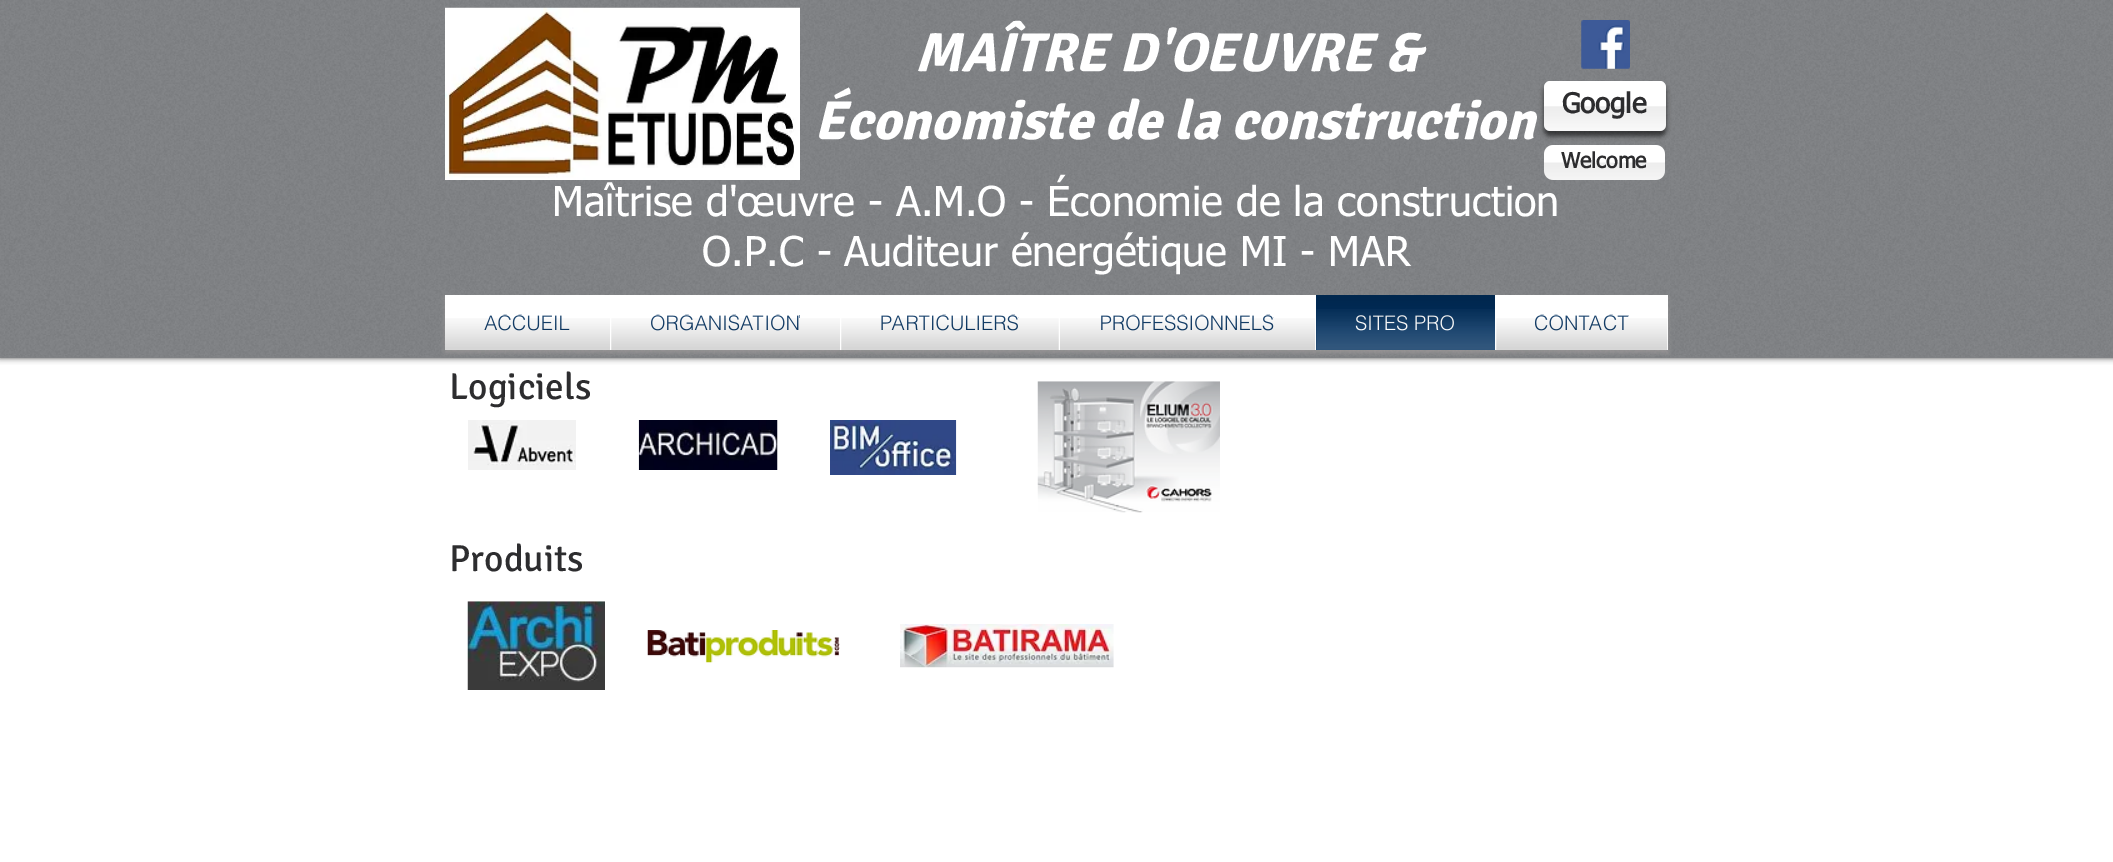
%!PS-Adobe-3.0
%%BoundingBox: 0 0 2113 862
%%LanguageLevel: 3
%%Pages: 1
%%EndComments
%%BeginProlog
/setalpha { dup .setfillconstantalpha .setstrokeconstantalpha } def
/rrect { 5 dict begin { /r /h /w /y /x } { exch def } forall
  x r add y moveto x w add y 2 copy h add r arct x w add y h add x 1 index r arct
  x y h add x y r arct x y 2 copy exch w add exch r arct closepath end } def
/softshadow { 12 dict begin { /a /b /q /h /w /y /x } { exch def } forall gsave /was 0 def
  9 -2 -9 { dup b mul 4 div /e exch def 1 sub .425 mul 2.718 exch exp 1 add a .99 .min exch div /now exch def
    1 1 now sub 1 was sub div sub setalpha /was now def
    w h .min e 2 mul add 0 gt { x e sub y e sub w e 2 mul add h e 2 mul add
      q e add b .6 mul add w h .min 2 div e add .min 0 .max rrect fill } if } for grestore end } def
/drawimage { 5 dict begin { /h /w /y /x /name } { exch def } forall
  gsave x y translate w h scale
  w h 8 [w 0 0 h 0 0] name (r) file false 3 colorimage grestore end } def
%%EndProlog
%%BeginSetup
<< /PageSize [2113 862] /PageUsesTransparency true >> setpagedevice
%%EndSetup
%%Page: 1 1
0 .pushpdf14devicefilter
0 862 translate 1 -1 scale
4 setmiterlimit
1 setgray
0 0 2113 862 rectfill
0 setgray
0 0 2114 358 0 3 0.7 softshadow
0.51 0.518 0.529 setrgbcolor
0 0 2113 358 rectfill
(images/1.raw) 0 0 2113 358 drawimage
(images/2.raw) 445 7 355 173 drawimage
(images/3.raw) 1581 20 49 49 drawimage
0 setgray
1544 86 122 50 6 2.5 0.6 softshadow
1 setgray
1544 81 122 50 6 rrect fill
(images/4.raw) 1544 82 122 49 drawimage
1544 145 121 35 9 rrect fill
(images/5.raw) 1544 145 121 35 drawimage
0.635 0.62 0.62 setrgbcolor
445 298 1223 55 0 2 0.6 softshadow
1 setgray
445 295 871 55 rectfill
0 0.18 0.365 setrgbcolor
1316 295 179 55 rectfill
1 setgray
1495 295 173 55 rectfill
(images/18.raw) 1037 381 183 132 drawimage
(images/19.raw) 468 420 108 50 drawimage
(images/20.raw) 638 420 140 50 drawimage
(images/21.raw) 830 420 127 55 drawimage
(images/22.raw) 467 601 138 89 drawimage
(images/23.raw) 647 630 193 33 drawimage
(images/24.raw) 900 624 214 44 drawimage
/Signika-BoldItalic [55 0 0 -55 0 0] selectfont
915 71 moveto (MAÎTRE D'OEUVRE &) show
814 139 moveto (Économiste de la construction) show
/tahoma-Bold [27.5 0 0 -27.5 0 0] selectfont
0.176 0.176 0.184 setrgbcolor
1562 113 moveto (Google) show
/tahoma-Bold [21.25 0 0 -21.25 0 0] selectfont
1561 168 moveto (Welcome) show
/tahoma-Regular [41.25 0 0 -41.25 0 0] selectfont
1 setgray
552 216 moveto (Maîtrise d'œuvre - A.M.O - Économie de la construction) show
702 266 moveto (O.P.C - Auditeur énergétique MI - MAR) show
/helvetica-Bold [20 0 0 -20 0 0] selectfont
0 0.18 0.365 setrgbcolor
484 330 moveto (ACCUEIL) show
(images/6.raw) 484 315 85 15 drawimage
(images/7.raw) 445 318 165 32 drawimage
650 330 moveto (ORGANISATION) show
(images/8.raw) 651 315 148 15 drawimage
(images/9.raw) 611 318 229 32 drawimage
880 330 moveto (PARTICULIERS) show
(images/10.raw) 881 315 137 15 drawimage
(images/11.raw) 841 318 218 32 drawimage
1100 330 moveto (PROFESSIONNELS) show
(images/12.raw) 1101 315 172 15 drawimage
(images/13.raw) 1060 318 255 32 drawimage
1 setgray
1355 330 moveto (SITES PRO) show
(images/14.raw) 1316 295 179 32 drawimage
(images/15.raw) 1316 309 179 41 drawimage
0 0.18 0.365 setrgbcolor
1534 330 moveto (CONTACT) show
(images/16.raw) 1535 315 93 15 drawimage
(images/17.raw) 1496 318 172 32 drawimage
/Signika-Regular [37.5 0 0 -37.5 0 0] selectfont
0.176 0.176 0.184 setrgbcolor
449 399 moveto (Logiciels) show
449 571 moveto (Produits) show
.poppdf14devicefilter showpage
%%EOF
